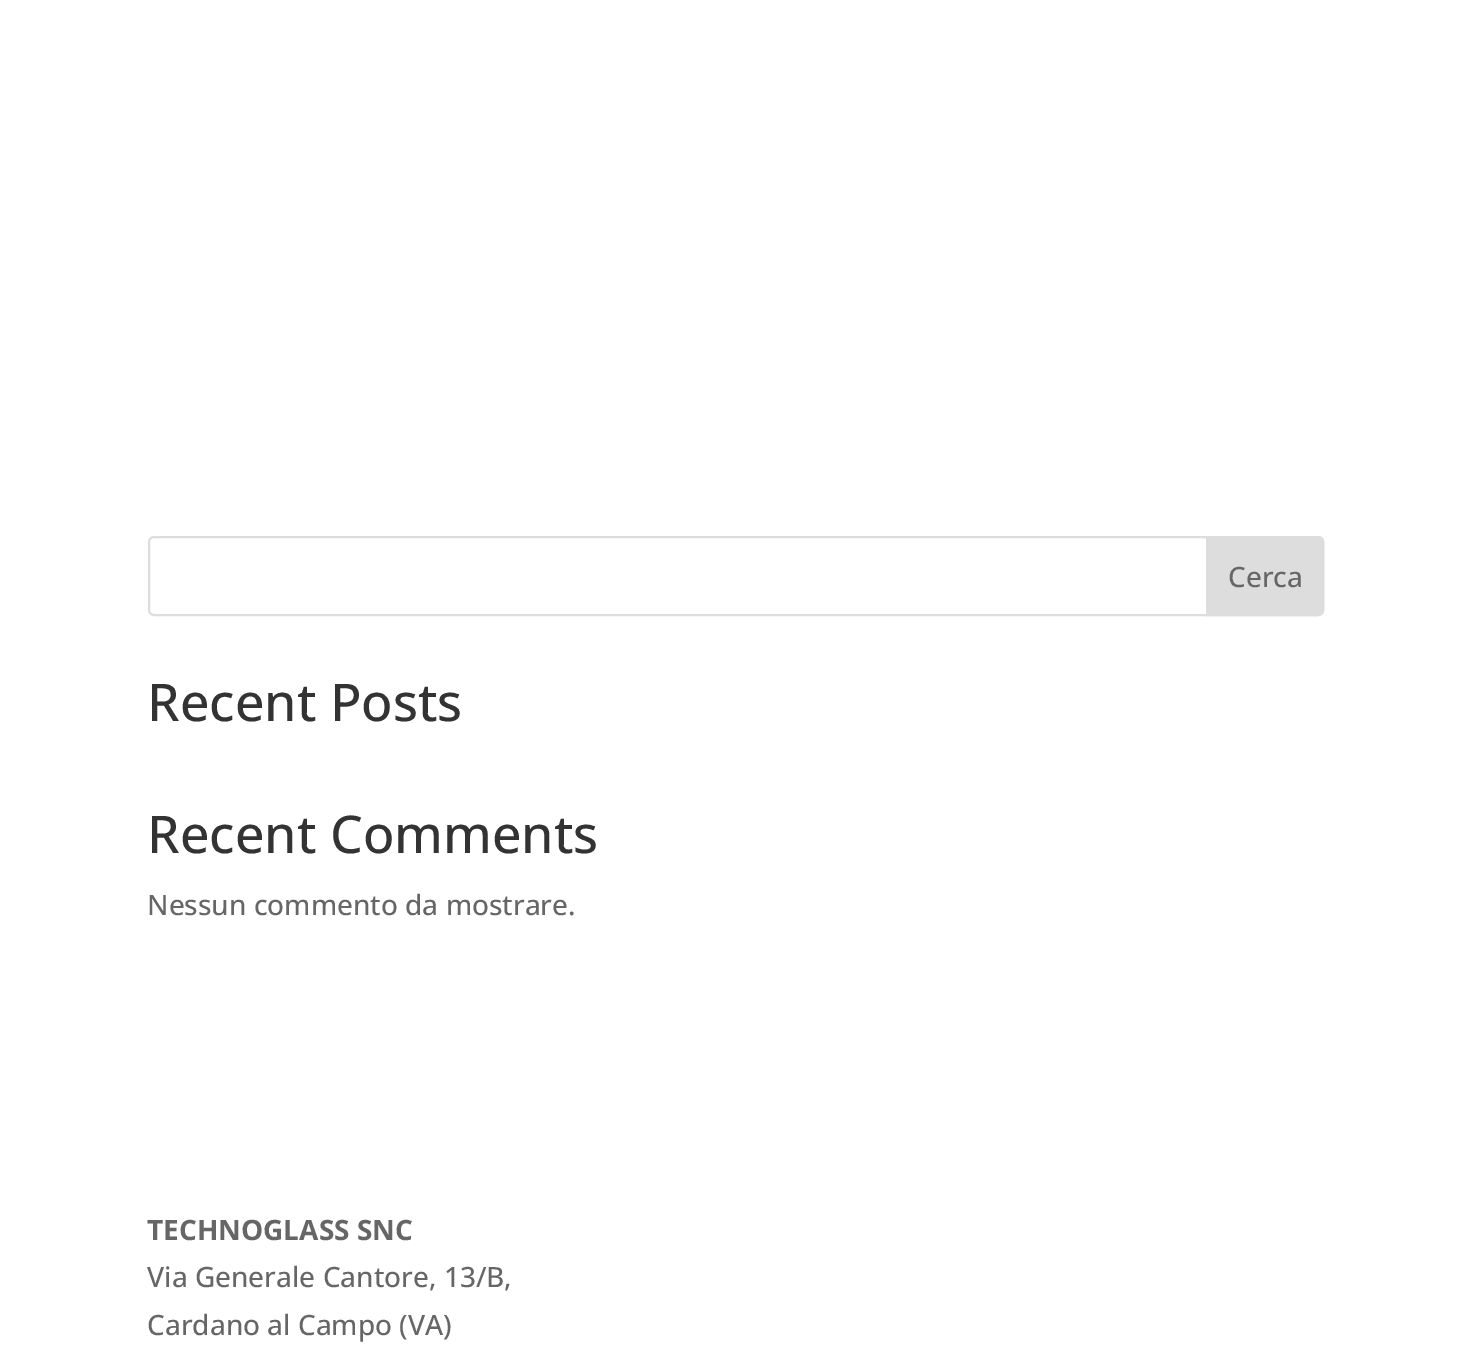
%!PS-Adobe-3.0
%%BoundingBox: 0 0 1471 1362
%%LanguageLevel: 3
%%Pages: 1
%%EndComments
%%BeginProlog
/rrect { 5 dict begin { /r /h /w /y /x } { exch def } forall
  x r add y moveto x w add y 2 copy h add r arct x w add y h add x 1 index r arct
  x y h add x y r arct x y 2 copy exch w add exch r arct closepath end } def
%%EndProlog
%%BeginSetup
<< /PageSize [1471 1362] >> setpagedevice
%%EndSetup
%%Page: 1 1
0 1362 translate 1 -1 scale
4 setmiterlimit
1 setgray
0 0 1471 1362 rectfill
0.867 setgray
2 setlinewidth
149 537 1174 78 5 rrect stroke
newpath 1207 537 moveto 1318 537 lineto 1321 537 1323 539 1323 542 curveto 1323 610 lineto 1323 613 1321 615 1318 615 curveto 1207 615 lineto closepath gsave fill grestore
stroke
/OpenSans-Medium [28 0 0 -28 0 0] selectfont
0.4 setgray
1228 587 moveto (Cerca) show
/OpenSans-Medium [52 0 0 -52 0 0] selectfont
0.2 setgray
147 721 moveto (Recent Posts) show
147 853 moveto (Recent Comments) show
/OpenSans-Medium [28 0 0 -28 0 0] selectfont
0.4 setgray
147 915 moveto (Nessun commento da mostrare.) show
/OpenSans-Bold [28 0 0 -28 0 0] selectfont
147 1240 moveto (TECHNOGLASS SNC) show
/OpenSans-Medium [28 0 0 -28 0 0] selectfont
147 1287 moveto (Via Generale Cantore, 13/B,) show
147 1335 moveto (Cardano al Campo \(VA\)) show
showpage
%%EOF
